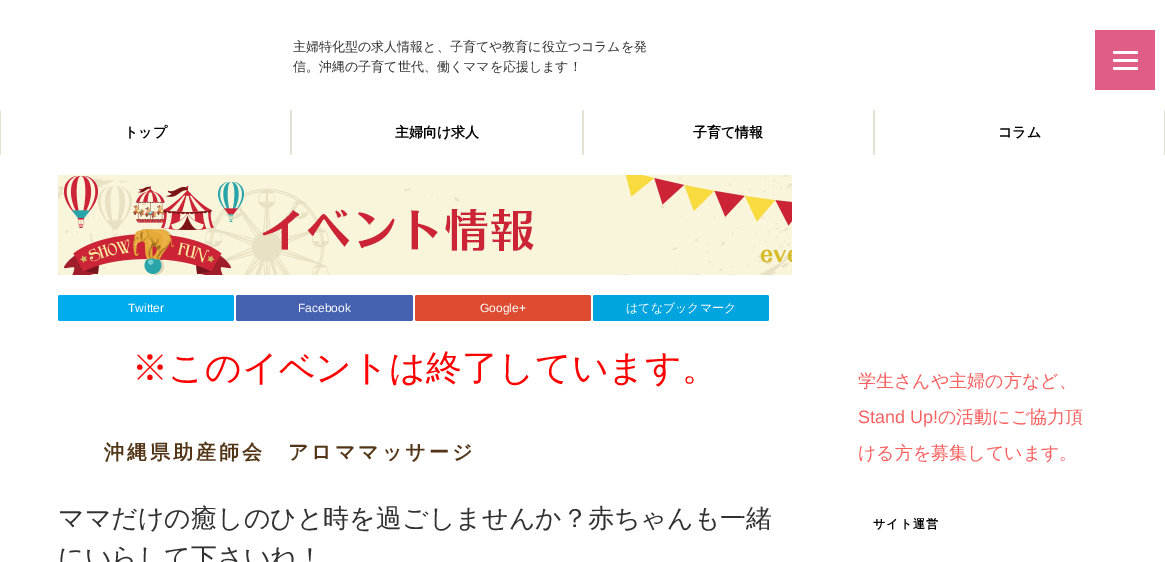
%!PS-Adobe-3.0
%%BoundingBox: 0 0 1165 562
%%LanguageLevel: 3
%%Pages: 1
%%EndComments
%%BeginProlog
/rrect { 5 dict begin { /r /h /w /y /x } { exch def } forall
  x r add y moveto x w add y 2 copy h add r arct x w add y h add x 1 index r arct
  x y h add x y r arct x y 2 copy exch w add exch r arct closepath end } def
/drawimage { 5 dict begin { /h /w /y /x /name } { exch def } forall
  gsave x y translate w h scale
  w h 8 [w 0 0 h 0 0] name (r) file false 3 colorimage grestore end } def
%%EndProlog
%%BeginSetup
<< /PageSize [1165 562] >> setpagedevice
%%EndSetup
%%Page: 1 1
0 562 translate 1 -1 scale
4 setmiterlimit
1 setgray
0 0 1165 562 rectfill
0.878 0.369 0.525 setrgbcolor
1095 30 60 60 rectfill
1 setgray
1113 59 25 3 1.5 rrect fill
1113 51 25 3 1.5 rrect fill
1113 67 25 3 1.5 rrect fill
0.894 0.886 0.827 setrgbcolor
290 110 2 45 rectfill
0 110 1 45 rectfill
582 110 2 45 rectfill
873 110 2 45 rectfill
1164 110 1 45 rectfill
(images/1.raw) 58 175 734 100 drawimage
0 0.675 0.933 setrgbcolor
58 295 176 26 2 rrect fill
0.271 0.38 0.69 setrgbcolor
236 295 177 26 2 rrect fill
0.867 0.294 0.188 setrgbcolor
415 295 176 26 2 rrect fill
0 0.643 0.871 setrgbcolor
593 295 176 26 2 rrect fill
/WenQuanYiZenHei-Medium [13 0 0 -13 0 0] selectfont
0.192 setgray
293 51 moveto (主婦特化型の求人情報と、子育てや教育に役立つコラムを発) show
293 71 moveto (信。沖縄の子育て世代、働くママを応援します！) show
/WenQuanYiZenHei-Bold [14 0 0 -14 0 0] selectfont
0 setgray
124 137 moveto (トップ) show
395 137 moveto (主婦向け求人) show
693 137 moveto (子育て情報) show
998 137 moveto (コラム) show
/LiberationSans-Regular [12 0 0 -12 0 0] selectfont
1 setgray
128 312 moveto (Twitter) show
298 312 moveto (Facebook) show
480 312 moveto (Google+) show
/WenQuanYiZenHei-Medium [12 0 0 -12 0 0] selectfont
626 312 moveto (はてなブックマーク) show
/WenQuanYiZenHei-Medium [36 0 0 -36 0 0] selectfont
1 0 0 setrgbcolor
132 380 moveto (※このイベントは終了しています。) show
/WenQuanYiZenHei-Bold [20 0 0 -20 0 0] selectfont
0.325 0.212 0.09 setrgbcolor
104 459 moveto 3 0 (沖縄県助産師会　アロママッサージ) ashow
/WenQuanYiZenHei-Medium [26 0 0 -26 0 0] selectfont
0.192 setgray
58 527 moveto (ママだけの癒しのひと時を過ごしませんか？赤ちゃんも一緒) show
58 566 moveto (にいらして下さいね！) show
/WenQuanYiZenHei-Medium [18 0 0 -18 0 0] selectfont
0.973 0.373 0.373 setrgbcolor
858 387 moveto (学生さんや主婦の方など、) show
/LiberationSans-Regular [18 0 0 -18 0 0] selectfont
858 423 moveto (Stand Up!) show
/WenQuanYiZenHei-Medium [18 0 0 -18 0 0] selectfont
938 423 moveto (の活動にご協力頂) show
858 459 moveto (ける方を募集しています。) show
/WenQuanYiZenHei-Bold [12 0 0 -12 0 0] selectfont
0 setgray
873 528 moveto 1 0 (サイト運営) ashow
showpage
%%EOF
